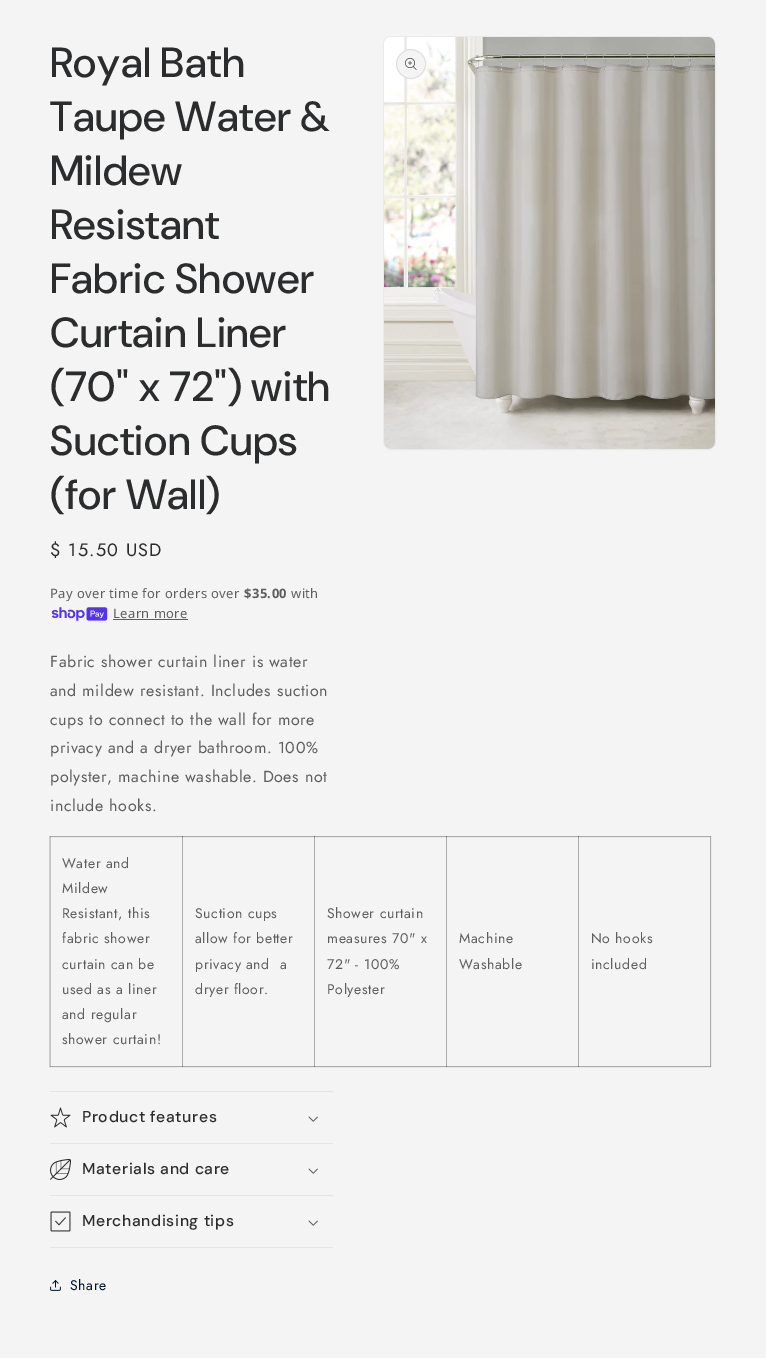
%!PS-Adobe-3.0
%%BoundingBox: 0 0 766 1363
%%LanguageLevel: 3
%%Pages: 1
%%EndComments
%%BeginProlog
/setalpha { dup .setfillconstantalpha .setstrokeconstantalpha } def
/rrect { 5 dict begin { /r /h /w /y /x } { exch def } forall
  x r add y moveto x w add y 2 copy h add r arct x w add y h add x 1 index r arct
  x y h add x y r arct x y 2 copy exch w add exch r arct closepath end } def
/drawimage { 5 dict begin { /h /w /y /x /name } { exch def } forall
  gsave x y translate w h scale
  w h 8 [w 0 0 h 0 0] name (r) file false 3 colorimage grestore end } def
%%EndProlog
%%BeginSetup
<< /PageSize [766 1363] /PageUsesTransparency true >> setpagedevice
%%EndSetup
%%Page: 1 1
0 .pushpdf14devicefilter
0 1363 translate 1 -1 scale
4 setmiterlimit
0.957 setgray
0 0 766 1363 rectfill
0.918 setgray
383.5 36.5 332 413 7.5 rrect stroke
(images/1.raw) 384 37 331 412 drawimage
0.957 setgray
newpath 411 64 15 0 360 arc closepath fill
0.1 setalpha
0.169 0.173 0.176 setrgbcolor
newpath 411 64 14.5 0 360 arc closepath stroke
1 setalpha
(images/2.raw) 405 58 12 12 drawimage
(images/3.raw) 51 607 57 14 drawimage
0.365 0.369 0.373 setrgbcolor
113 619 75 1 rectfill
0.8 setgray
49.5 836.5 661 230 rectstroke
0.675 setgray
578 836 133 1 rectfill
0.2 setalpha
0.169 0.173 0.176 setrgbcolor
710 836 1 231 rectfill
578 1066 133 1 rectfill
578 836 1 231 rectfill
446 836 133 1 rectfill
578 836 1 231 rectfill
446 1066 133 1 rectfill
446 836 1 231 rectfill
314 836 133 1 rectfill
446 836 1 231 rectfill
314 1066 133 1 rectfill
314 836 1 231 rectfill
182 836 133 1 rectfill
314 836 1 231 rectfill
182 1066 133 1 rectfill
182 836 1 231 rectfill
50 836 133 1 rectfill
182 836 1 231 rectfill
50 1066 133 1 rectfill
50 836 1 231 rectfill
1 setalpha
0.894 setgray
50 1091 283 1 rectfill
50 1143 283 1 rectfill
(images/4.raw) 50 1107 21 21 drawimage
(images/5.raw) 308 1116 10 6 drawimage
50 1195 283 1 rectfill
(images/6.raw) 50 1159 21 21 drawimage
(images/5.raw) 308 1168 10 6 drawimage
50 1247 283 1 rectfill
(images/7.raw) 50 1211 21 21 drawimage
(images/5.raw) 308 1220 10 6 drawimage
(images/8.raw) 50 1280 11 11 drawimage
1 setgray
0 1358 766 5 rectfill
/DMSans-Medium [42 0 0 -42 0 0] selectfont
0.169 0.173 0.176 setrgbcolor
50 77 moveto 0.6 0 (Royal Bath) ashow
50 131 moveto 0.6 0 (Taupe Water &) ashow
50 185 moveto 0.6 0 (Mildew) ashow
50 239 moveto 0.6 0 (Resistant) ashow
50 293 moveto 0.6 0 (Fabric Shower) ashow
50 347 moveto 0.6 0 (Curtain Liner) ashow
50 401 moveto 0.6 0 (\(70" x 72"\) with) ashow
50 455 moveto 0.6 0 (Suction Cups) ashow
50 509 moveto 0.6 0 (\(for Wall\)) ashow
/Jost-Regular [18 0 0 -18 0 0] selectfont
50 556 moveto 1.25 0 ($ 15.50 USD) ashow
/NotoSans-Regular [13 0 0 -13 0 0] selectfont
0.365 0.369 0.373 setrgbcolor
50 598 moveto 0.4 0 (Pay over time for orders over) ashow
/NotoSans-Bold [13 0 0 -13 0 0] selectfont
244 598 moveto 0.4 0 ($35.00) ashow
/NotoSans-Regular [13 0 0 -13 0 0] selectfont
291 598 moveto 0.4 0 (with) ashow
113 618 moveto 0.4 0 (Learn more) ashow
/Jost-Regular [16 0 0 -16 0 0] selectfont
50 667 moveto 0.6 0 (Fabric shower curtain liner is water) ashow
50 696 moveto 0.6 0 (and mildew resistant. Includes suction) ashow
50 725 moveto 0.6 0 (cups to connect to the wall for more) ashow
50 753 moveto 0.6 0 (privacy and a dryer bathroom. 100%) ashow
50 782 moveto 0.6 0 (polyster, machine washable. Does not) ashow
50 811 moveto 0.6 0 (include hooks.) ashow
/Jost-Regular [14 0 0 -14 0 0] selectfont
62 868 moveto 0.6 0 (Water and) ashow
62 893 moveto 0.6 0 (Mildew) ashow
62 918 moveto 0.6 0 (Resistant, this) ashow
62 943 moveto 0.6 0 (fabric shower) ashow
62 969 moveto 0.6 0 (curtain can be) ashow
62 994 moveto 0.6 0 (used as a liner) ashow
62 1019 moveto 0.6 0 (and regular) ashow
62 1044 moveto 0.6 0 (shower curtain!) ashow
195 918 moveto 0.6 0 (Suction cups) ashow
195 943 moveto 0.6 0 (allow for better) ashow
195 969 moveto 0.6 0 (privacy and  a) ashow
195 994 moveto 0.6 0 (dryer floor.) ashow
327 918 moveto 0.6 0 (Shower curtain) ashow
327 943 moveto 0.6 0 (measures 70" x) ashow
327 969 moveto 0.6 0 (72" - 100%) ashow
327 994 moveto 0.6 0 (Polyester) ashow
459 943 moveto 0.6 0 (Machine) ashow
459 969 moveto 0.6 0 (Washable) ashow
591 943 moveto 0.6 0 (No hooks) ashow
591 969 moveto 0.6 0 (included) ashow
/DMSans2-Medium [15.75 0 0 -15.75 0 0] selectfont
0.169 0.173 0.176 setrgbcolor
82 1122 moveto 0.6 0 (Product features) ashow
82 1174 moveto 0.6 0 (Materials and care) ashow
82 1226 moveto 0.6 0 (Merchandising tips) ashow
/Jost-Regular [14 0 0 -14 0 0] selectfont
0 0.067 0.157 setrgbcolor
70 1290 moveto 0.6 0 (Share) ashow
.poppdf14devicefilter showpage
%%EOF
